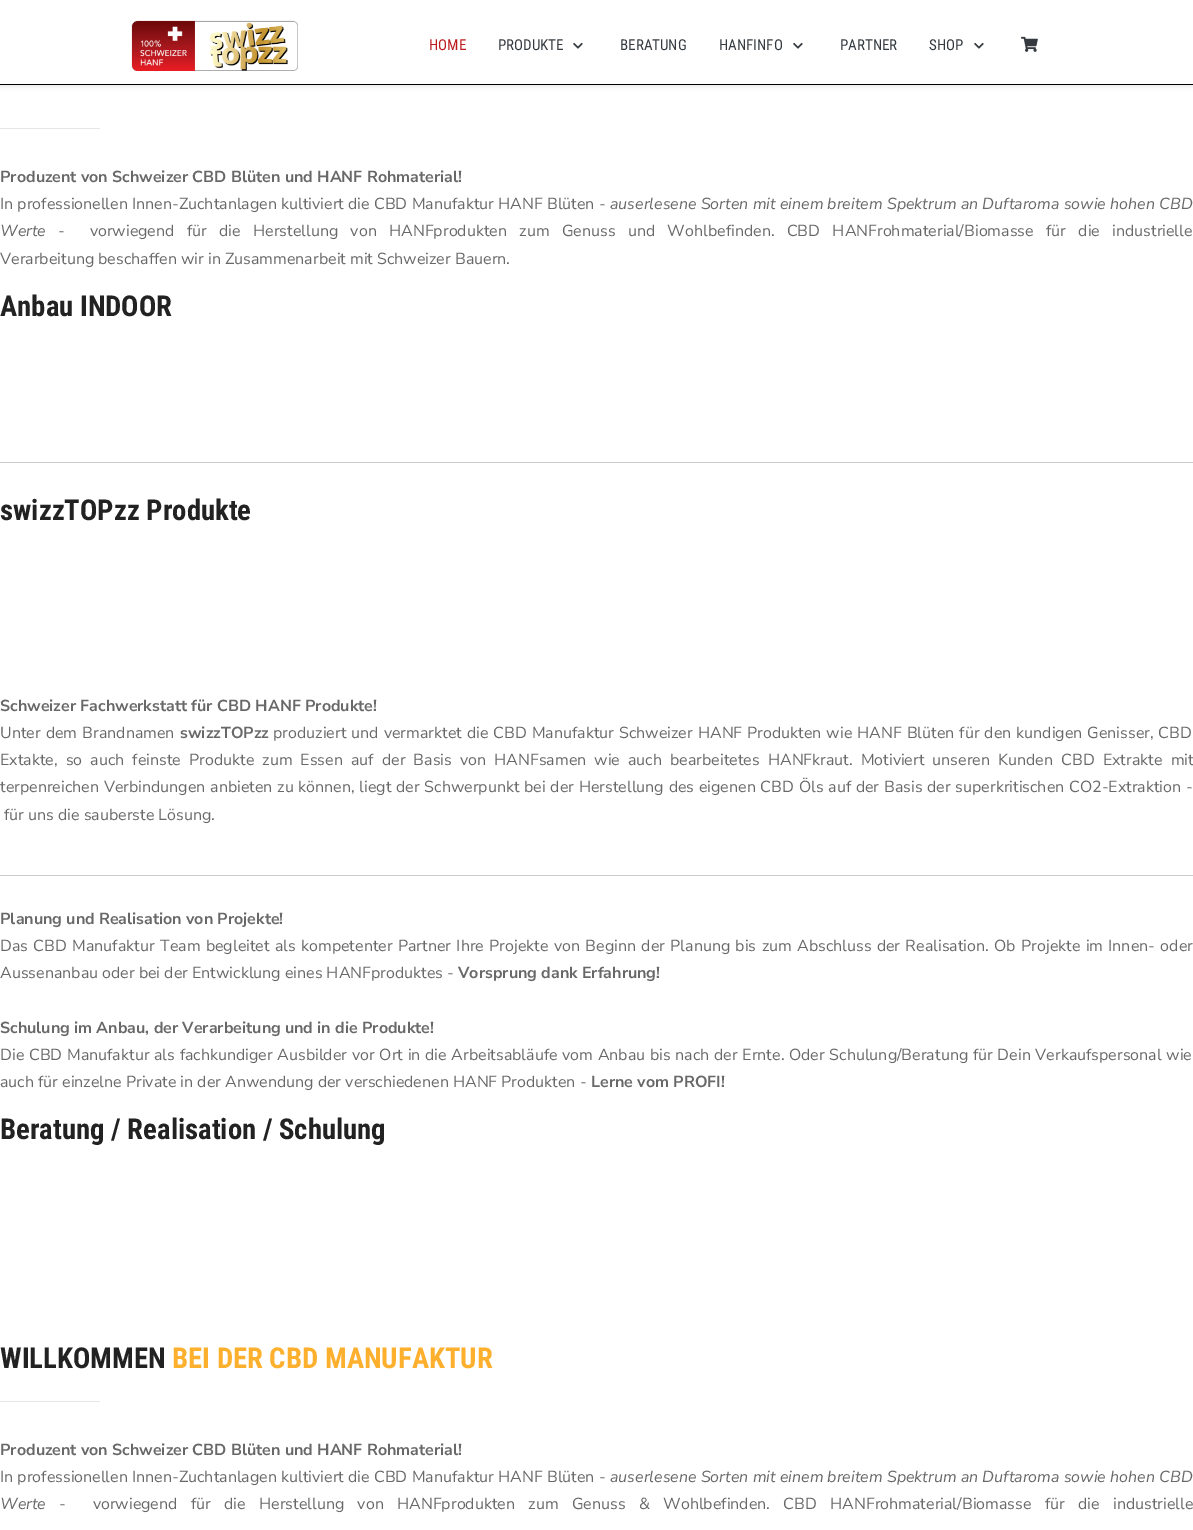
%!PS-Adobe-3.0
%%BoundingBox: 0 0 1193 1530
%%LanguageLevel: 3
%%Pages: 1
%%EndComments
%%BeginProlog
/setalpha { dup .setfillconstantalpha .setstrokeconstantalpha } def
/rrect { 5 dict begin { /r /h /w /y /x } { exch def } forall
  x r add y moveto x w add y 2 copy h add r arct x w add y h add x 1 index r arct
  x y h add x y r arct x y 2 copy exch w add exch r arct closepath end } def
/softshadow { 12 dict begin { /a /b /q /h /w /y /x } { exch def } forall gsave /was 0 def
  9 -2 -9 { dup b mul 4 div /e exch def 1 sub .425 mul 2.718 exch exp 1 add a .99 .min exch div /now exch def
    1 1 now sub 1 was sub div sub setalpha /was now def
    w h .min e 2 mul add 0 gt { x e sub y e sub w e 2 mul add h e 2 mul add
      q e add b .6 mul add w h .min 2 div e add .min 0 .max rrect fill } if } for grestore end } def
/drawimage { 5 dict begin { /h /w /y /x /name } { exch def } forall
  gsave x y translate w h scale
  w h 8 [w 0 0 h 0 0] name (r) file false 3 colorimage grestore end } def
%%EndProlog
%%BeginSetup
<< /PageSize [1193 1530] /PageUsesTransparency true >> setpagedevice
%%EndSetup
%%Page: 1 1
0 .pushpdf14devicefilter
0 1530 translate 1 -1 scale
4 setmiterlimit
1 setgray
0 0 1193 1530 rectfill
0 setgray
0 2 1193 85 0 2 0.07 softshadow
1 setgray
0 0 1193 84 rectfill
0 setgray
0 84 1193 1 rectfill
(images/1.raw) 131 20 167 51 drawimage
(images/2.raw) 573 42 10 7 drawimage
(images/2.raw) 793 42 10 7 drawimage
(images/2.raw) 974 42 10 7 drawimage
(images/3.raw) 1021 36 17 16 drawimage
0.902 setgray
0 128 100 1 rectfill
0.8 setgray
0 462 1193 1 rectfill
0 875 1193 1 rectfill
0.902 setgray
0 1401 100 1 rectfill
/RobotoCondensed-Regular [15 0 0 -15 0 0] selectfont
0.741 0.106 0.122 setrgbcolor
429 50 moveto (HOME) show
0.204 0.227 0.251 setrgbcolor
498 50 moveto (PRODUKTE) show
620 50 moveto (BERATUNG) show
719 50 moveto (HANFINFO) show
840 50 moveto (PARTNER) show
929 50 moveto (SHOP) show
/NunitoSans-Bold [16 0 0 -16 0 0] selectfont
0.408 setgray
0 182 moveto (Produzent von Schweizer CBD Blüten und HANF Rohmaterial!) show
/NunitoSans-Regular [16 0 0 -16 0 0] selectfont
0 209 moveto 0.1 0 32 (In professionellen Innen-Zuchtanlagen kultiviert die CBD Manufaktur HANF Blüten -) widthshow
/NunitoSans-Italic [16 0 0 -16 0 0] selectfont
610 209 moveto 0.1 0 32 (auserlesene Sorten mit einem breitem Spektrum an Duftaroma sowie hohen CBD) widthshow
0 236 moveto (Werte) show
/NunitoSans-Regular [16 0 0 -16 0 0] selectfont
58 236 moveto 8.25 0 32 (-  vorwiegend für die Herstellung von HANFprodukten zum Genuss und Wohlbefinden. CBD HANFrohmaterial/Biomasse für die industrielle) widthshow
0 264 moveto (Verarbeitung beschaffen wir in Zusammenarbeit mit Schweizer Bauern.) show
/RobotoCondensed-Bold [28.75 0 0 -28.75 0 0] selectfont
0.133 setgray
0 316 moveto (Anbau INDOOR) show
0 520 moveto (swizzTOPzz Produkte) show
/NunitoSans-Bold [16 0 0 -16 0 0] selectfont
0.408 setgray
0 711 moveto (Schweizer Fachwerkstatt für CBD HANF Produkte!) show
/NunitoSans-Regular [16 0 0 -16 0 0] selectfont
0 738 moveto 0.9 0 32 (Unter dem Brandnamen) widthshow
/NunitoSans-Bold [16 0 0 -16 0 0] selectfont
180 738 moveto (swizzTOPzz) show
/NunitoSans-Regular [16 0 0 -16 0 0] selectfont
273 738 moveto 0.9 0 32 (produziert und vermarktet die CBD Manufaktur Schweizer HANF Produkten wie HANF Blüten für den kundigen Genisser, CBD) widthshow
0 765 moveto 4 0 32 (Extakte, so auch feinste Produkte zum Essen auf der Basis von HANFsamen wie auch bearbeitetes HANFkraut. Motiviert unseren Kunden CBD Extrakte mit) widthshow
0 792 moveto 0.65 0 32 (terpenreichen Verbindungen anbieten zu können, liegt der Schwerpunkt bei der Herstellung des eigenen CBD Öls auf der Basis der superkritischen CO2-Extraktion -) widthshow
4 820 moveto (für uns die sauberste Lösung.) show
/NunitoSans-Bold [16 0 0 -16 0 0] selectfont
0 924 moveto (Planung und Realisation von Projekte!) show
/NunitoSans-Regular [16 0 0 -16 0 0] selectfont
0 951 moveto 1.25 0 32 (Das CBD Manufaktur Team begleitet als kompetenter Partner Ihre Projekte von Beginn der Planung bis zum Abschluss der Realisation. Ob Projekte im Innen- oder) widthshow
0 978 moveto (Aussenanbau oder bei der Entwicklung eines HANFproduktes -) show
/NunitoSans-Bold [16 0 0 -16 0 0] selectfont
458 978 moveto (Vorsprung dank Erfahrung!) show
0 1033 moveto (Schulung im Anbau, der Verarbeitung und in die Produkte!) show
/NunitoSans-Regular [16 0 0 -16 0 0] selectfont
0 1060 moveto 0.6 0 32 (Die CBD Manufaktur als fachkundiger Ausbilder vor Ort in die Arbeitsabläufe vom Anbau bis nach der Ernte. Oder Schulung/Beratung für Dein Verkaufspersonal wie) widthshow
0 1087 moveto (auch für einzelne Private in der Anwendung der verschiedenen HANF Produkten -) show
/NunitoSans-Bold [16 0 0 -16 0 0] selectfont
591 1087 moveto (Lerne vom PROFI!) show
/RobotoCondensed-Bold [28.75 0 0 -28.75 0 0] selectfont
0.133 setgray
0 1139 moveto (Beratung / Realisation / Schulung) show
0 1368 moveto (WILLKOMMEN) show
0.992 0.686 0.18 setrgbcolor
172 1368 moveto (BEI DER CBD MANUFAKTUR) show
/NunitoSans-Bold [16 0 0 -16 0 0] selectfont
0.408 setgray
0 1455 moveto (Produzent von Schweizer CBD Blüten und HANF Rohmaterial!) show
/NunitoSans-Regular [16 0 0 -16 0 0] selectfont
0 1482 moveto 0.1 0 32 (In professionellen Innen-Zuchtanlagen kultiviert die CBD Manufaktur HANF Blüten -) widthshow
/NunitoSans-Italic [16 0 0 -16 0 0] selectfont
610 1482 moveto 0.1 0 32 (auserlesene Sorten mit einem breitem Spektrum an Duftaroma sowie hohen CBD) widthshow
0 1509 moveto (Werte) show
/NunitoSans-Regular [16 0 0 -16 0 0] selectfont
59 1509 moveto 9.25 0 32 (-  vorwiegend für die Herstellung von HANFprodukten zum Genuss & Wohlbefinden. CBD HANFrohmaterial/Biomasse für die industrielle) widthshow
.poppdf14devicefilter showpage
%%EOF
